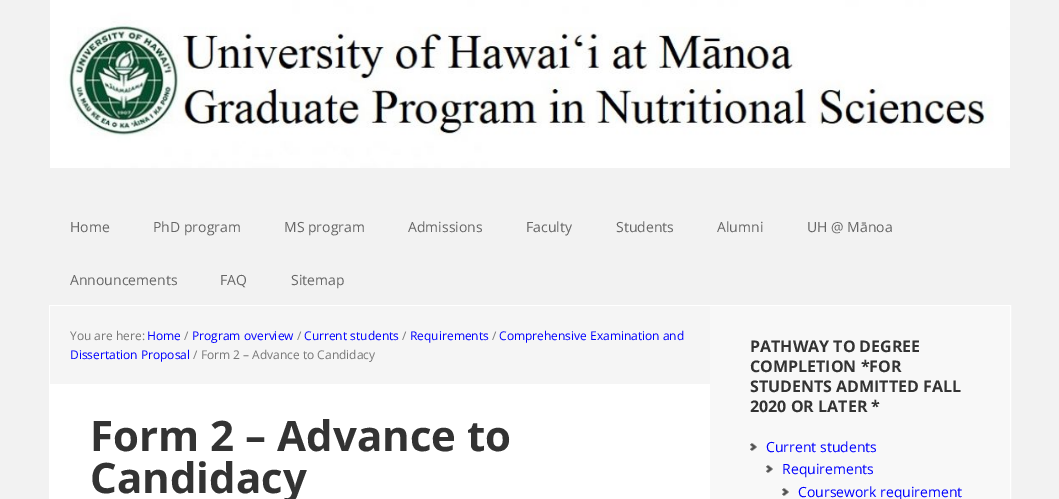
%!PS-Adobe-3.0
%%BoundingBox: 0 0 1059 499
%%LanguageLevel: 3
%%Pages: 1
%%EndComments
%%BeginProlog
/drawimage { 5 dict begin { /h /w /y /x /name } { exch def } forall
  gsave x y translate w h scale
  w h 8 [w 0 0 h 0 0] name (r) file false 3 colorimage grestore end } def
%%EndProlog
%%BeginSetup
<< /PageSize [1059 499] >> setpagedevice
%%EndSetup
%%Page: 1 1
0 499 translate 1 -1 scale
4 setmiterlimit
0.949 setgray
0 0 1059 499 rectfill
(images/1.raw) 50 0 960 168 drawimage
1 setgray
49.5 305.5 961 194 rectstroke
50 384 660 115 rectfill
0.961 setgray
50 306 660 78 rectfill
0.973 setgray
710 306 300 193 rectfill
(images/2.raw) 750 443 7 8 drawimage
(images/3.raw) 766 465 7 8 drawimage
(images/3.raw) 782 488 7 8 drawimage
/OpenSans-Regular [14 0 0 -14 0 0] selectfont
0.4 setgray
70 232 moveto (Home) show
153 232 moveto (PhD program) show
284 232 moveto (MS program) show
408 232 moveto (Admissions) show
526 232 moveto (Faculty) show
616 232 moveto (Students) show
717 232 moveto (Alumni) show
807 232 moveto (UH @ Mānoa) show
70 285 moveto (Announcements) show
220 285 moveto (FAQ) show
291 285 moveto (Sitemap) show
/OpenSans-Regular [12 0 0 -12 0 0] selectfont
0.467 setgray
70 340 moveto (You are here:) show
0 0 1 setrgbcolor
147 340 moveto (Home) show
0.467 setgray
184 340 moveto (/) show
0 0 1 setrgbcolor
192 340 moveto (Program overview) show
0.467 setgray
297 340 moveto (/) show
0 0 1 setrgbcolor
304 340 moveto (Current students) show
0.467 setgray
402 340 moveto (/) show
0 0 1 setrgbcolor
410 340 moveto (Requirements) show
0.467 setgray
492 340 moveto (/) show
0 0 1 setrgbcolor
499 340 moveto (Comprehensive Examination and) show
70 359 moveto (Dissertation Proposal) show
0.467 setgray
193 359 moveto (/ Form 2 – Advance to Candidacy) show
/OpenSans-Bold [42 0 0 -42 0 0] selectfont
0.2 setgray
90 451 moveto (Form 2 – Advance to) show
90 493 moveto (Candidacy) show
/OpenSans-Bold [16 0 0 -16 0 0] selectfont
750 352 moveto (PATHWAY TO DEGREE) show
750 372 moveto (COMPLETION *FOR) show
750 392 moveto (STUDENTS ADMITTED FALL) show
750 412 moveto (2020 OR LATER *) show
/OpenSans-Regular [14 0 0 -14 0 0] selectfont
0 0 1 setrgbcolor
766 452 moveto (Current students) show
782 474 moveto (Requirements) show
798 497 moveto (Coursework requirement) show
showpage
%%EOF
